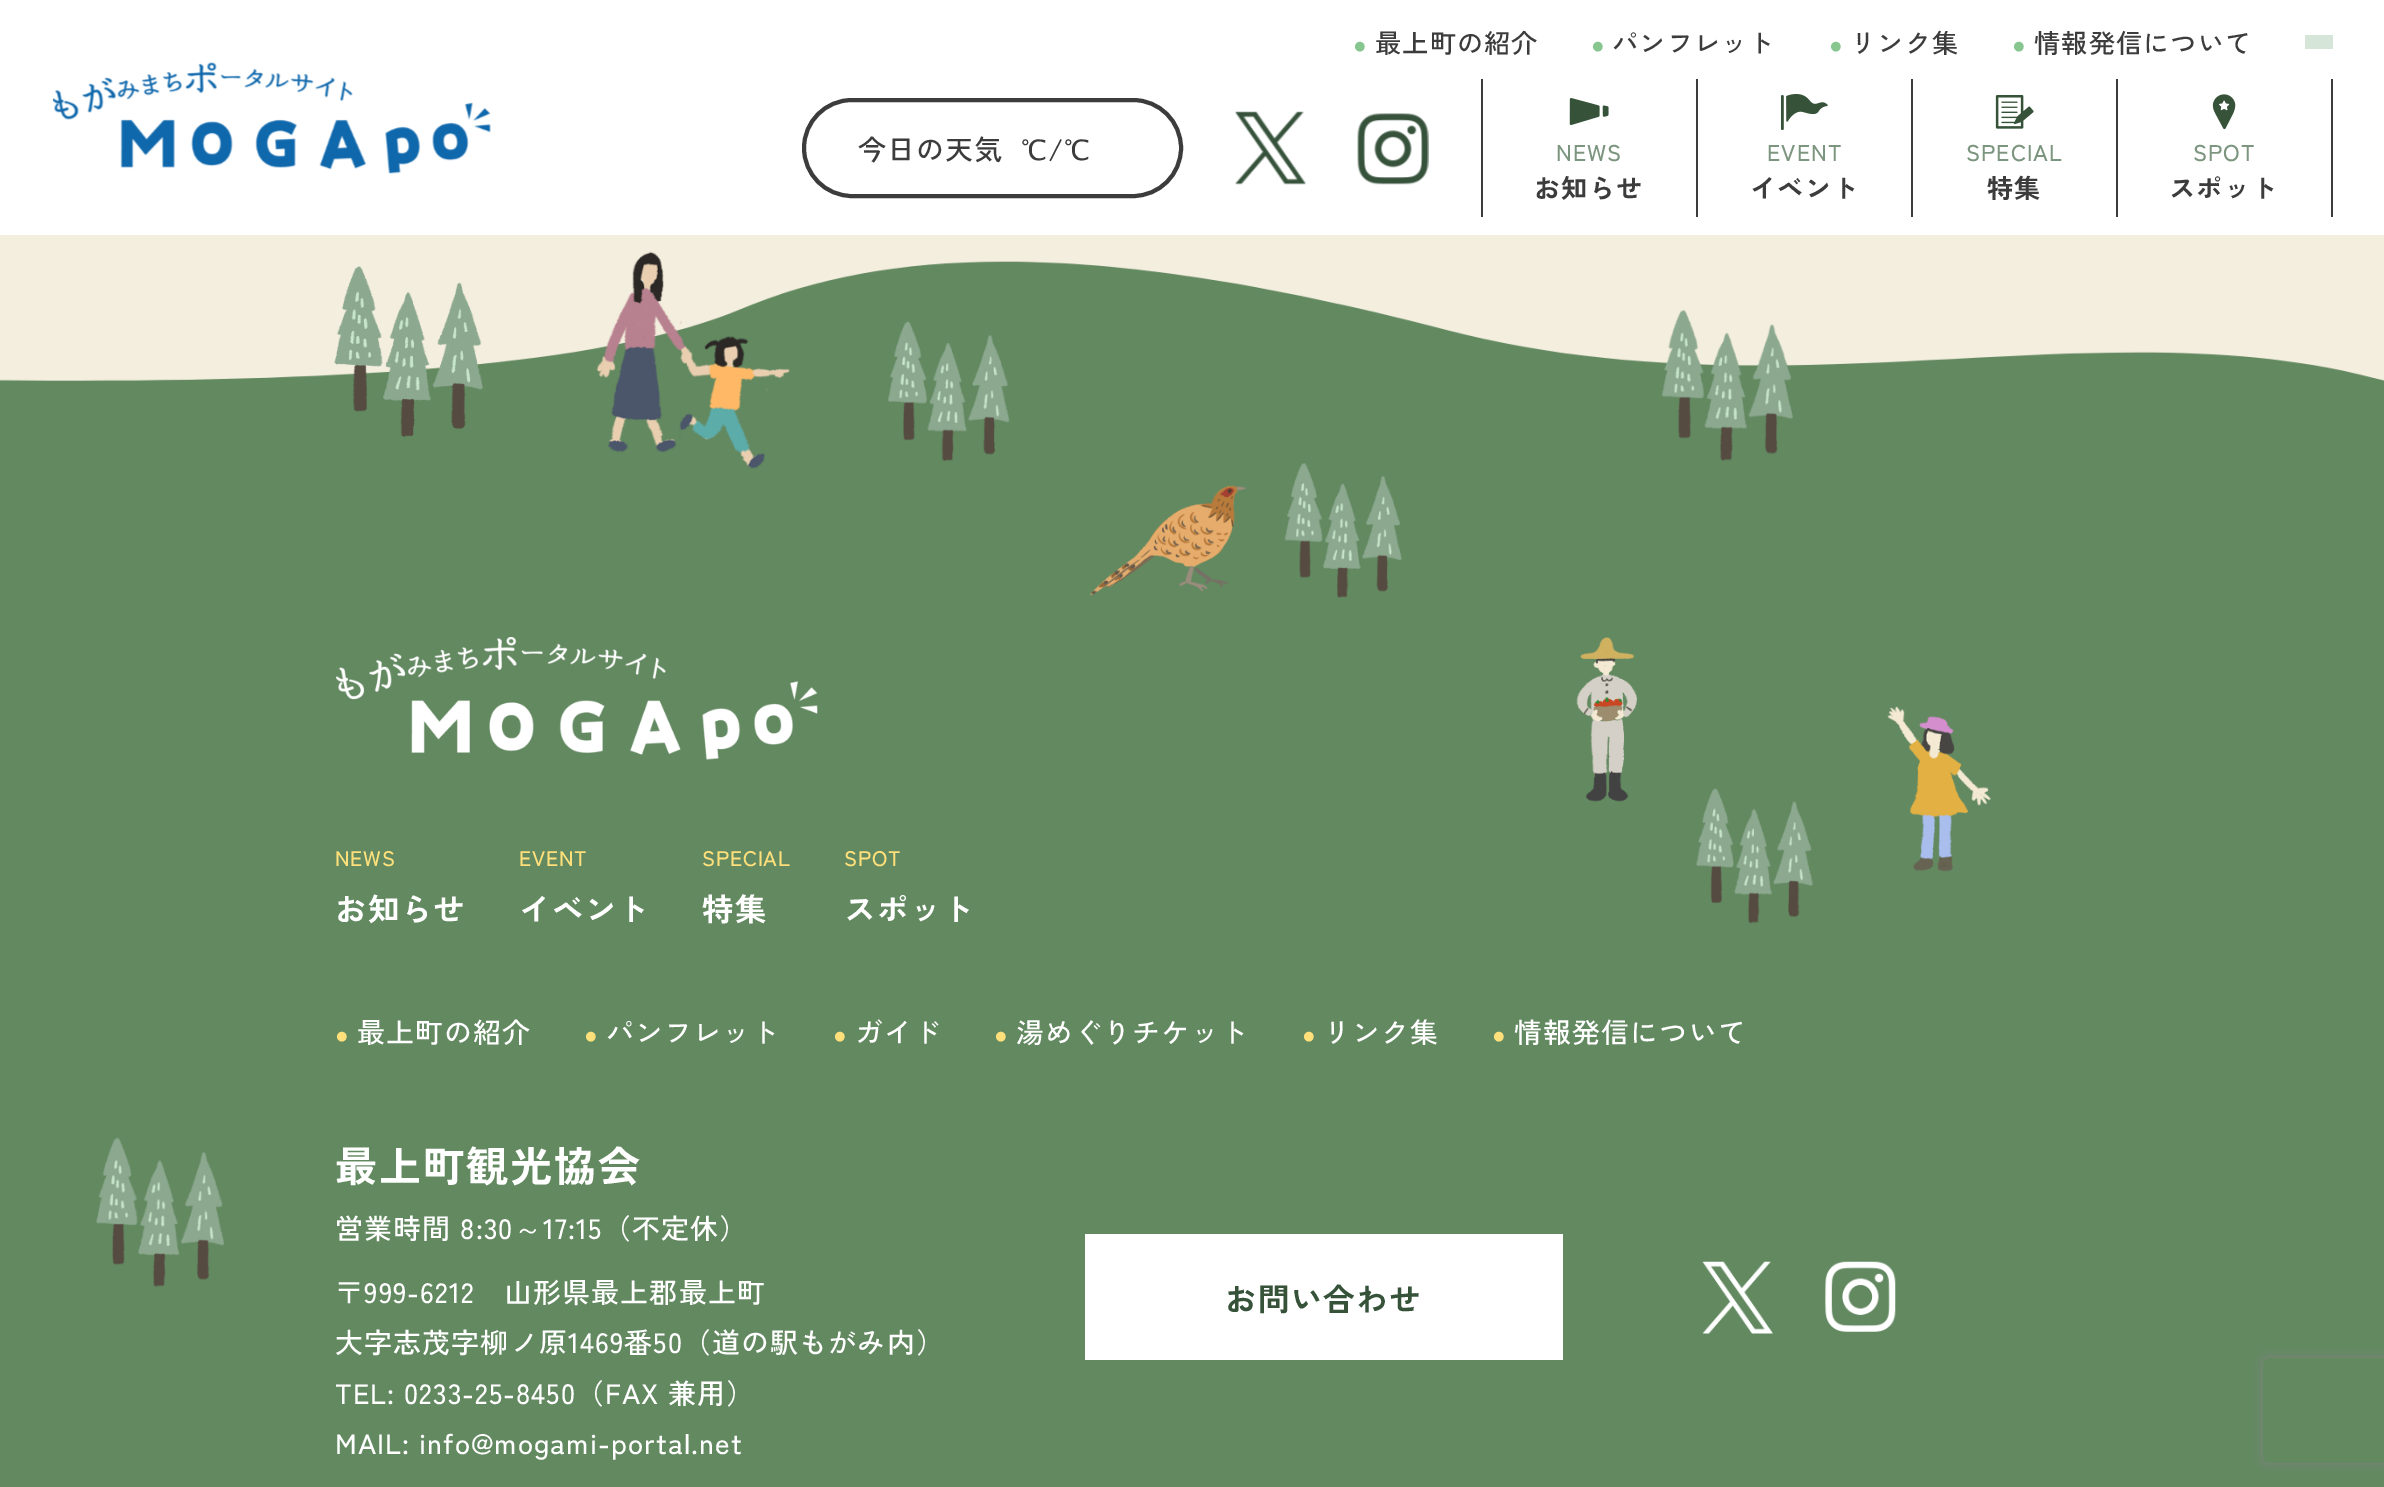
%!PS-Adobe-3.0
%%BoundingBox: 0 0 2384 1487
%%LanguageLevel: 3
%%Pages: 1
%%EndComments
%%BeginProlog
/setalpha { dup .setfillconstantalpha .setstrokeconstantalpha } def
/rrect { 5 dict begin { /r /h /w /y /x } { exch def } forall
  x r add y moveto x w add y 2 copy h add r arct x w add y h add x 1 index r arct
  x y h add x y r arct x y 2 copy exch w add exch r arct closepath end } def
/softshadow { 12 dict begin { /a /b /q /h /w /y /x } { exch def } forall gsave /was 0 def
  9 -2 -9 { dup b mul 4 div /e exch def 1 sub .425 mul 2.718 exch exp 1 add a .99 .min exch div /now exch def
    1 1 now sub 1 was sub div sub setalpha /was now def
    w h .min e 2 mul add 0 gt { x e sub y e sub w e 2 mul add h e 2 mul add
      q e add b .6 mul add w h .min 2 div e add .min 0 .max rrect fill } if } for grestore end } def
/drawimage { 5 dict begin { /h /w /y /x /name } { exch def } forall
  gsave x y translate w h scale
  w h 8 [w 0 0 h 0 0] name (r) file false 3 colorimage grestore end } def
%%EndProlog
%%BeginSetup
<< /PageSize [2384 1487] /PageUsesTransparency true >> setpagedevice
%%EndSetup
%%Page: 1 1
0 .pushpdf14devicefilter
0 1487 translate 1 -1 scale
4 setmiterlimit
0.957 0.933 0.871 setrgbcolor
0 0 2384 1487 rectfill
1 setgray
0 0 2384 235 rectfill
(images/1.raw) 53 62 438 112 drawimage
0.835 0.898 0.843 setrgbcolor
2305 35 28 14 rectfill
0.235 setgray
4 setlinewidth
804 100 377 96 48 rrect stroke
(images/2.raw) 1235 111 71 74 drawimage
(images/3.raw) 1357 113 72 72 drawimage
1481 79 2 138 rectfill
(images/4.raw) 1569 98 40 27 drawimage
1696 79 2 138 rectfill
(images/5.raw) 1780 94 48 36 drawimage
1911 79 2 138 rectfill
(images/6.raw) 1995 95 39 34 drawimage
2331 79 2 138 rectfill
2116 79 2 138 rectfill
(images/7.raw) 2212 94 24 36 drawimage
(images/8.raw) 0 251 2384 351 drawimage
0.388 0.537 0.38 setrgbcolor
0 602 2384 885 rectfill
(images/9.raw) 336 637 482 123 drawimage
(images/10.raw) 1576 637 415 287 drawimage
(images/11.raw) 96 1137 128 150 drawimage
1 setgray
1085 1234 478 126 rectfill
(images/12.raw) 1702 1261 71 73 drawimage
(images/13.raw) 1825 1261 71 71 drawimage
gsave
newpath 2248 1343 moveto 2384 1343 lineto 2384 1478 lineto 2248 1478 lineto closepath 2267 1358 moveto 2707 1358 lineto 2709 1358 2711 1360 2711 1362 curveto 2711 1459 lineto 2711 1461 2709 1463 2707 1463 curveto 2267 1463 lineto 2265 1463 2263 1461 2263 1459 curveto 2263 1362 lineto 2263 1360 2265 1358 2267 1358 curveto closepath eoclip newpath
0.502 setgray
2263 1358 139 105 4 4.5 1 softshadow
grestore
/LiberationSans-Regular [22.75 0 0 -22.75 0 0] selectfont
0.533 0.776 0.565 setrgbcolor
1353 53 moveto 1 0 (●) ashow
/ZenKakuGothicNew-Medium [26.25 0 0 -26.25 0 0] selectfont
0.235 setgray
1375 53 moveto 1 0 (最上町の紹介) ashow
/LiberationSans-Regular [22.75 0 0 -22.75 0 0] selectfont
0.533 0.776 0.565 setrgbcolor
1591 53 moveto 1 0 (●) ashow
/ZenKakuGothicNew-Medium [26.25 0 0 -26.25 0 0] selectfont
0.235 setgray
1612 53 moveto 1 0 (パンフレット) ashow
/LiberationSans-Regular [22.75 0 0 -22.75 0 0] selectfont
0.533 0.776 0.565 setrgbcolor
1829 53 moveto 1 0 (●) ashow
/ZenKakuGothicNew-Medium [26.25 0 0 -26.25 0 0] selectfont
0.235 setgray
1850 53 moveto 1 0 (リンク集) ashow
/LiberationSans-Regular [22.75 0 0 -22.75 0 0] selectfont
0.533 0.776 0.565 setrgbcolor
2012 53 moveto 1 0 (●) ashow
/ZenKakuGothicNew-Medium [26.25 0 0 -26.25 0 0] selectfont
0.235 setgray
2034 53 moveto 1 0 (情報発信について) ashow
/ZenKakuGothicNew-Medium [28 0 0 -28 0 0] selectfont
858 160 moveto 1.1 0 (今日の天気) ashow
/WenQuanYiZenHei-Medium [28 0 0 -28 0 0] selectfont
1021 160 moveto 1.1 0 (℃) ashow
/ZenKakuGothicNew-Medium [28 0 0 -28 0 0] selectfont
1048 160 moveto 1.1 0 (/) ashow
/WenQuanYiZenHei-Medium [28 0 0 -28 0 0] selectfont
1064 160 moveto 1.1 0 (℃) ashow
/ZenKakuGothicNew-Medium [22.75 0 0 -22.75 0 0] selectfont
0.486 0.584 0.498 setrgbcolor
1556 161 moveto 1 0 (NEWS) ashow
/ZenKakuGothicNew-Bold [26.25 0 0 -26.25 0 0] selectfont
0.235 setgray
1534 198 moveto 1 0 (お知らせ) ashow
/ZenKakuGothicNew-Medium [22.75 0 0 -22.75 0 0] selectfont
0.486 0.584 0.498 setrgbcolor
1767 161 moveto 1 0 (EVENT) ashow
/ZenKakuGothicNew-Bold [26.25 0 0 -26.25 0 0] selectfont
0.235 setgray
1750 198 moveto 1 0 (イベント) ashow
/ZenKakuGothicNew-Medium [22.75 0 0 -22.75 0 0] selectfont
0.486 0.584 0.498 setrgbcolor
1966 161 moveto 1 0 (SPECIAL) ashow
/ZenKakuGothicNew-Bold [26.25 0 0 -26.25 0 0] selectfont
0.235 setgray
1987 198 moveto 1 0 (特集) ashow
/ZenKakuGothicNew-Medium [22.75 0 0 -22.75 0 0] selectfont
0.486 0.584 0.498 setrgbcolor
2193 161 moveto 1 0 (SPOT) ashow
/ZenKakuGothicNew-Bold [26.25 0 0 -26.25 0 0] selectfont
0.235 setgray
2169 198 moveto 1 0 (スポット) ashow
/ZenKakuGothicNew-Medium [21 0 0 -21 0 0] selectfont
1 0.878 0.482 setrgbcolor
335 866 moveto 0.75 0 (NEWS) ashow
/ZenKakuGothicNew-Bold [31.5 0 0 -31.5 0 0] selectfont
1 setgray
335 921 moveto 1.25 0 (お知らせ) ashow
/ZenKakuGothicNew-Medium [21 0 0 -21 0 0] selectfont
1 0.878 0.482 setrgbcolor
519 866 moveto 0.75 0 (EVENT) ashow
/ZenKakuGothicNew-Bold [31.5 0 0 -31.5 0 0] selectfont
1 setgray
519 921 moveto 1.25 0 (イベント) ashow
/ZenKakuGothicNew-Medium [21 0 0 -21 0 0] selectfont
1 0.878 0.482 setrgbcolor
702 866 moveto 0.75 0 (SPECIAL) ashow
/ZenKakuGothicNew-Bold [31.5 0 0 -31.5 0 0] selectfont
1 setgray
702 921 moveto 1.25 0 (特集) ashow
/ZenKakuGothicNew-Medium [21 0 0 -21 0 0] selectfont
1 0.878 0.482 setrgbcolor
844 866 moveto 0.75 0 (SPOT) ashow
/ZenKakuGothicNew-Bold [31.5 0 0 -31.5 0 0] selectfont
1 setgray
844 921 moveto 1.25 0 (スポット) ashow
/LiberationSans-Regular [22.75 0 0 -22.75 0 0] selectfont
1 0.878 0.482 setrgbcolor
335 1043 moveto 1 0 (●) ashow
/ZenKakuGothicNew-Medium [28 0 0 -28 0 0] selectfont
1 setgray
357 1043 moveto 1.1 0 (最上町の紹介) ashow
/LiberationSans-Regular [22.75 0 0 -22.75 0 0] selectfont
1 0.878 0.482 setrgbcolor
584 1043 moveto 1 0 (●) ashow
/ZenKakuGothicNew-Medium [28 0 0 -28 0 0] selectfont
1 setgray
606 1043 moveto 1.1 0 (パンフレット) ashow
/LiberationSans-Regular [22.75 0 0 -22.75 0 0] selectfont
1 0.878 0.482 setrgbcolor
833 1043 moveto 1 0 (●) ashow
/ZenKakuGothicNew-Medium [28 0 0 -28 0 0] selectfont
1 setgray
855 1043 moveto 1.1 0 (ガイド) ashow
/LiberationSans-Regular [22.75 0 0 -22.75 0 0] selectfont
1 0.878 0.482 setrgbcolor
994 1043 moveto 1 0 (●) ashow
/ZenKakuGothicNew-Medium [28 0 0 -28 0 0] selectfont
1 setgray
1016 1043 moveto 1.1 0 (湯めぐりチケット) ashow
/LiberationSans-Regular [22.75 0 0 -22.75 0 0] selectfont
1 0.878 0.482 setrgbcolor
1302 1043 moveto 1 0 (●) ashow
/ZenKakuGothicNew-Medium [28 0 0 -28 0 0] selectfont
1 setgray
1323 1043 moveto 1.1 0 (リンク集) ashow
/LiberationSans-Regular [22.75 0 0 -22.75 0 0] selectfont
1 0.878 0.482 setrgbcolor
1492 1043 moveto 1 0 (●) ashow
/ZenKakuGothicNew-Medium [28 0 0 -28 0 0] selectfont
1 setgray
1514 1043 moveto 1.1 0 (情報発信について) ashow
/ZenKakuGothicNew-Bold [42 0 0 -42 0 0] selectfont
335 1182 moveto 1.75 0 (最上町観光協会) ashow
/ZenKakuGothicNew-Medium [28 0 0 -28 0 0] selectfont
335 1239 moveto 1.1 0 (営業時間 8:30) ashow
/WenQuanYiZenHei-Medium [28 0 0 -28 0 0] selectfont
514 1239 moveto 1.1 0 (～) ashow
/ZenKakuGothicNew-Medium [28 0 0 -28 0 0] selectfont
543 1239 moveto 1.1 0 (17:15（不定休）) ashow
335 1303 moveto 1.1 0 (〒999-6212　山形県最上郡最上町) ashow
335 1353 moveto 1.1 0 (大字志茂字柳ノ原1469番50（道の駅もがみ内）) ashow
335 1404 moveto 1.1 0 (TEL: 0233-25-8450（FAX 兼用）) ashow
335 1454 moveto 1.1 0 (MAIL: info@mogami-portal.net) ashow
/ZenKakuGothicNew-Bold [31.5 0 0 -31.5 0 0] selectfont
0.212 0.325 0.227 setrgbcolor
1225 1311 moveto 1.25 0 (お問い合わせ) ashow
.poppdf14devicefilter showpage
%%EOF
